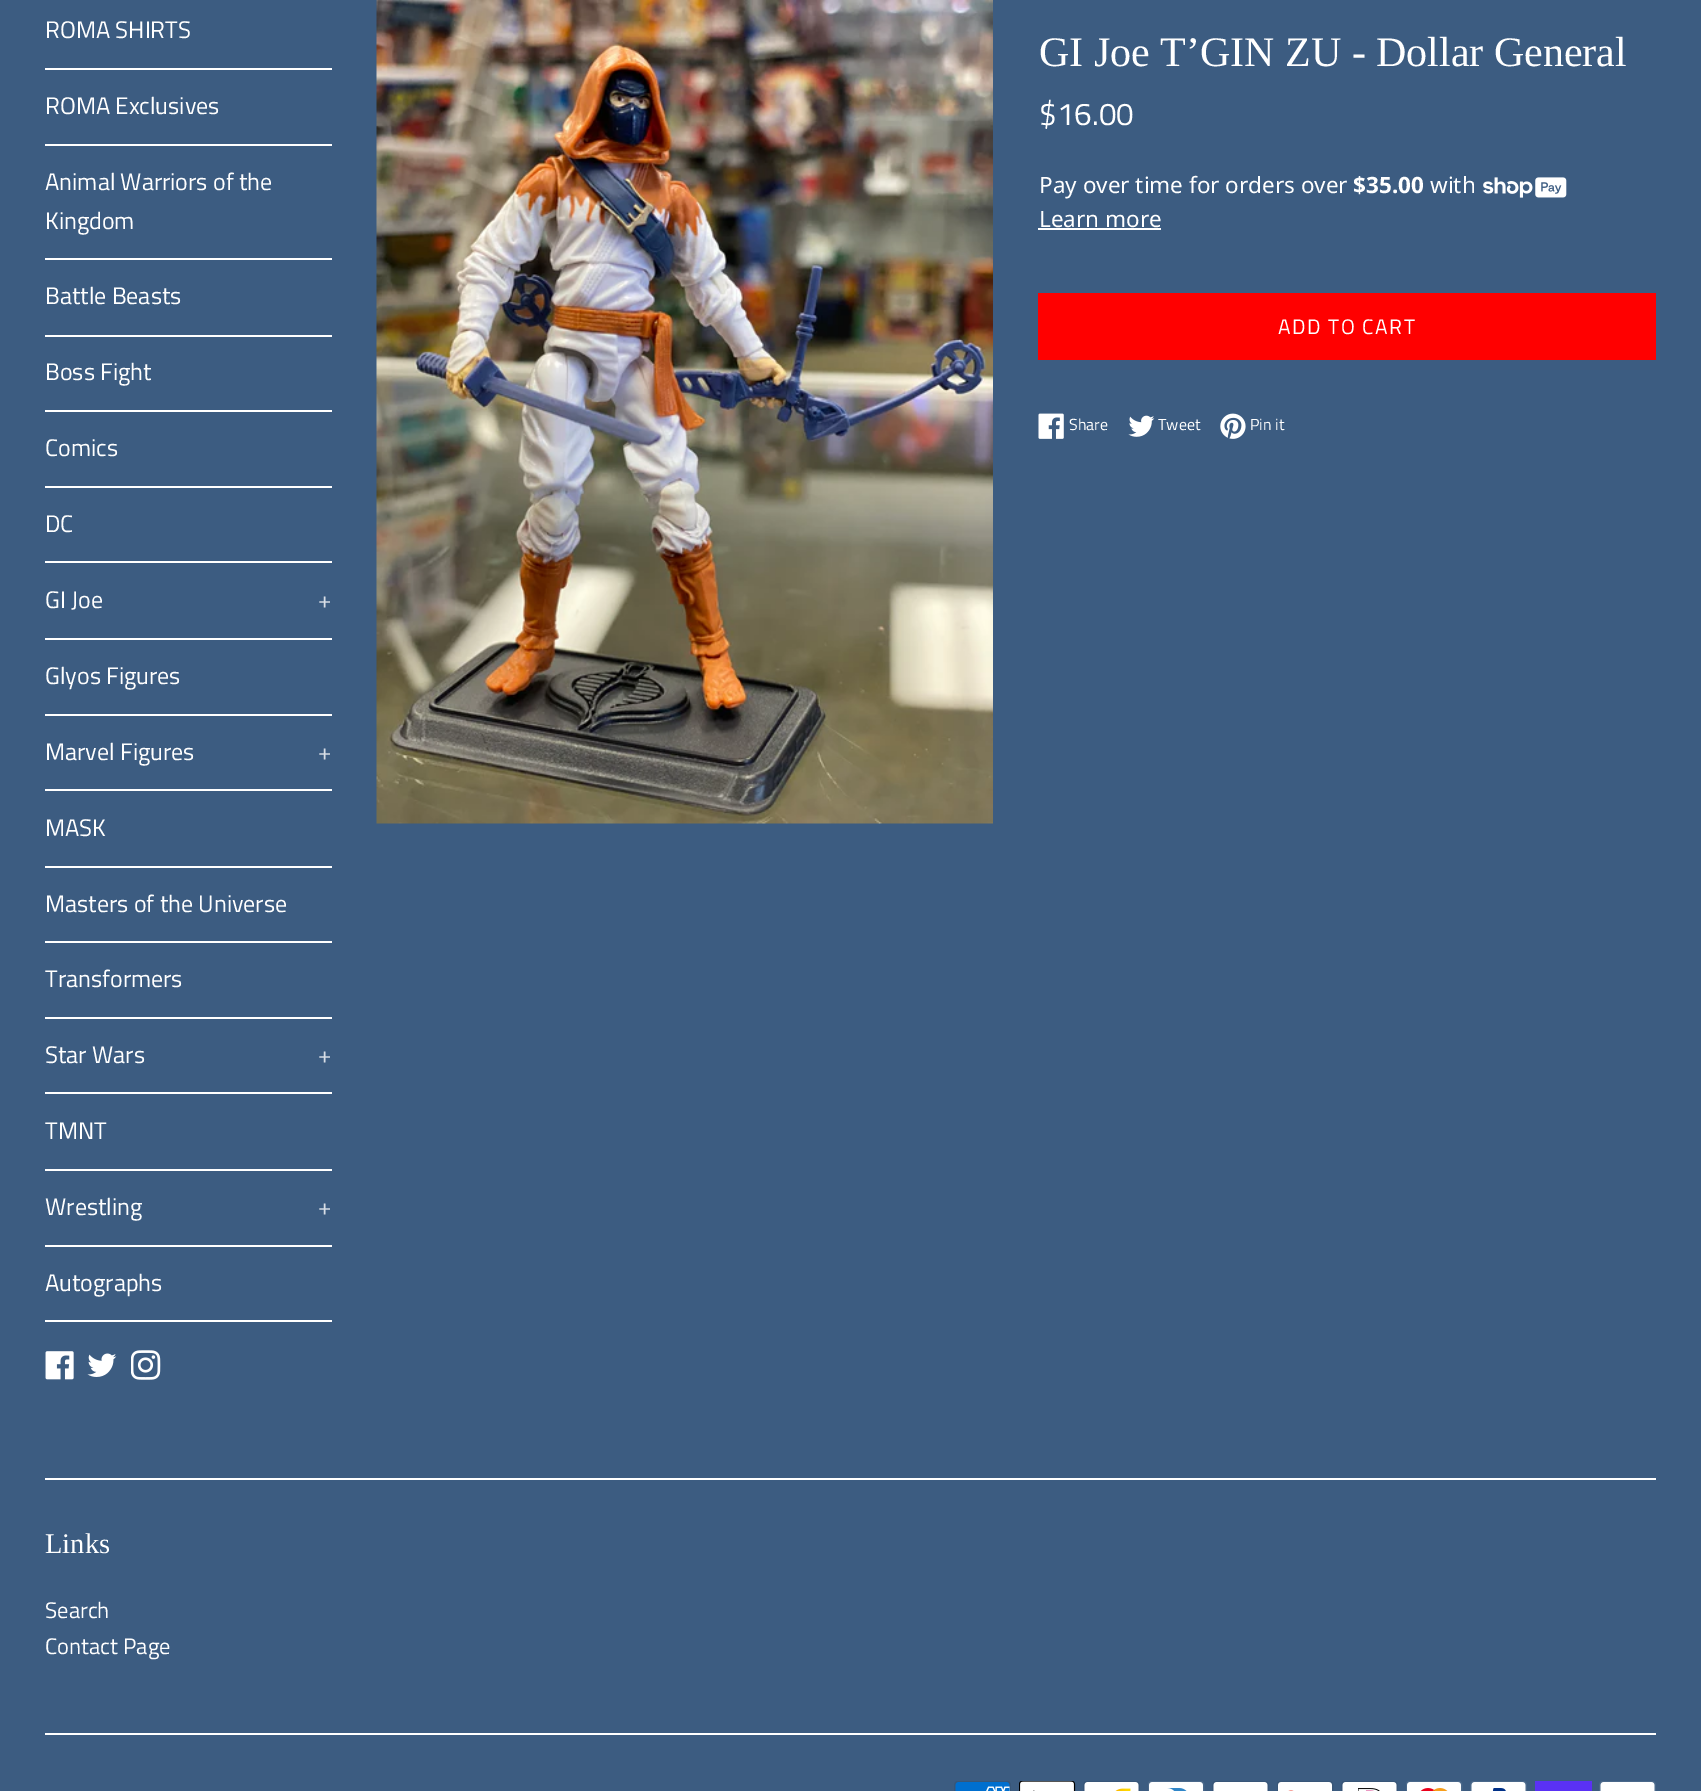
%!PS-Adobe-3.0
%%BoundingBox: 0 0 1701 1791
%%LanguageLevel: 3
%%Pages: 1
%%EndComments
%%BeginProlog
/drawimage { 5 dict begin { /h /w /y /x /name } { exch def } forall
  gsave x y translate w h scale
  w h 8 [w 0 0 h 0 0] name (r) file false 3 colorimage grestore end } def
%%EndProlog
%%BeginSetup
<< /PageSize [1701 1791] >> setpagedevice
%%EndSetup
%%Page: 1 1
0 1791 translate 1 -1 scale
4 setmiterlimit
0.235 0.361 0.506 setrgbcolor
0 0 1701 1791 rectfill
1 setgray
45 68 287 2 rectfill
45 144 287 2 rectfill
45 258 287 2 rectfill
45 335 287 2 rectfill
45 410 287 2 rectfill
45 486 287 2 rectfill
45 561 287 2 rectfill
45 638 287 2 rectfill
45 714 287 2 rectfill
45 789 287 2 rectfill
45 866 287 2 rectfill
45 941 287 2 rectfill
45 1017 287 2 rectfill
45 1092 287 2 rectfill
45 1169 287 2 rectfill
45 1245 287 2 rectfill
45 1320 287 2 rectfill
(images/1.raw) 45 1351 29 29 drawimage
(images/2.raw) 87 1353 30 24 drawimage
(images/3.raw) 131 1350 30 30 drawimage
(images/4.raw) 376 0 617 824 drawimage
(images/5.raw) 1483 177 84 21 drawimage
1038 228 123 2 rectfill
1 0 0 setrgbcolor
1038 293 618 67 rectfill
(images/6.raw) 1038 413 26 26 drawimage
(images/7.raw) 1128 415 27 22 drawimage
(images/8.raw) 1220 413 26 26 drawimage
1 setgray
45 1478 1611 2 rectfill
45 1733 1611 2 rectfill
(images/9.raw) 954 1781 57 10 drawimage
(images/10.raw) 1019 1781 57 10 drawimage
(images/11.raw) 1083 1781 57 10 drawimage
(images/12.raw) 1148 1781 57 10 drawimage
(images/13.raw) 1212 1781 57 10 drawimage
(images/14.raw) 1277 1781 57 10 drawimage
(images/15.raw) 1341 1781 57 10 drawimage
(images/16.raw) 1406 1781 57 10 drawimage
(images/17.raw) 1470 1781 57 10 drawimage
0.353 0.192 0.957 setrgbcolor
1535 1781 57 10 rectfill
(images/18.raw) 1599 1781 57 10 drawimage
/TitilliumWeb-Regular [24 0 0 -24 0 0] selectfont
1 setgray
45 38 moveto (ROMA SHIRTS) show
45 114 moveto (ROMA Exclusives) show
45 190 moveto (Animal Warriors of the) show
45 229 moveto (Kingdom) show
45 304 moveto (Battle Beasts) show
45 380 moveto (Boss Fight) show
45 456 moveto (Comics) show
45 532 moveto (DC) show
45 608 moveto (GI Joe) show
0.847 0.871 0.902 setrgbcolor
318 608 moveto (+) show
1 setgray
45 684 moveto (Glyos Figures) show
45 760 moveto (Marvel Figures) show
0.847 0.871 0.902 setrgbcolor
318 760 moveto (+) show
1 setgray
45 836 moveto (MASK) show
45 912 moveto (Masters of the Universe) show
45 987 moveto (Transformers) show
45 1063 moveto (Star Wars) show
0.847 0.871 0.902 setrgbcolor
318 1063 moveto (+) show
1 setgray
45 1139 moveto (TMNT) show
45 1215 moveto (Wrestling) show
0.847 0.871 0.902 setrgbcolor
318 1215 moveto (+) show
1 setgray
45 1291 moveto (Autographs) show
/LiberationSerif-Regular [42 0 0 -42 0 0] selectfont
1039 66 moveto (GI Joe T’GIN ZU - Dollar General) show
/TitilliumWeb-Regular [31.5 0 0 -31.5 0 0] selectfont
1039 125 moveto ($16.00) show
/NotoSans-Regular [22.5 0 0 -22.5 0 0] selectfont
1039 193 moveto (Pay over time for orders over) show
/NotoSans-Bold [22.5 0 0 -22.5 0 0] selectfont
1353 193 moveto ($35.00) show
/NotoSans-Regular [22.5 0 0 -22.5 0 0] selectfont
1430 193 moveto (with) show
1039 227 moveto (Learn more) show
/TitilliumWeb-Regular [21 0 0 -21 0 0] selectfont
1278 334 moveto 1.5 0 (ADD TO CART) ashow
/TitilliumWeb-Regular [16 0 0 -16 0 0] selectfont
1069 430 moveto (Share) show
1158 430 moveto (Tweet) show
1250 430 moveto (Pin it) show
/LiberationSerif-Regular [28.5 0 0 -28.5 0 0] selectfont
45 1553 moveto (Links) show
/TitilliumWeb-Regular [22.5 0 0 -22.5 0 0] selectfont
45 1618 moveto (Search) show
45 1654 moveto (Contact Page) show
showpage
%%EOF
